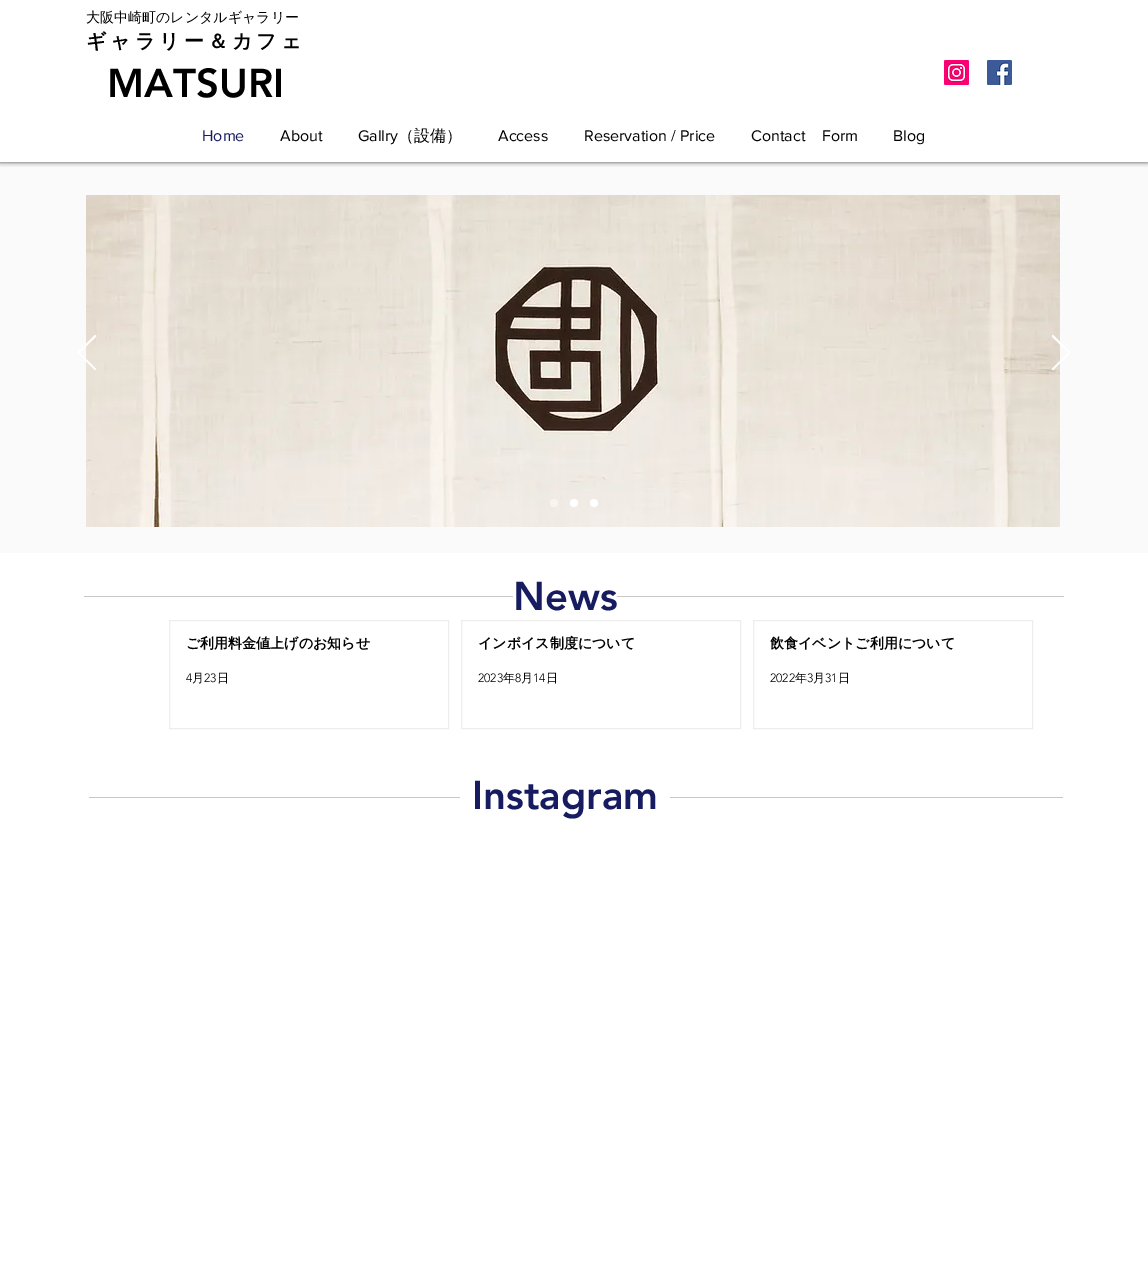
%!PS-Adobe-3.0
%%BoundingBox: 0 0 1148 1261
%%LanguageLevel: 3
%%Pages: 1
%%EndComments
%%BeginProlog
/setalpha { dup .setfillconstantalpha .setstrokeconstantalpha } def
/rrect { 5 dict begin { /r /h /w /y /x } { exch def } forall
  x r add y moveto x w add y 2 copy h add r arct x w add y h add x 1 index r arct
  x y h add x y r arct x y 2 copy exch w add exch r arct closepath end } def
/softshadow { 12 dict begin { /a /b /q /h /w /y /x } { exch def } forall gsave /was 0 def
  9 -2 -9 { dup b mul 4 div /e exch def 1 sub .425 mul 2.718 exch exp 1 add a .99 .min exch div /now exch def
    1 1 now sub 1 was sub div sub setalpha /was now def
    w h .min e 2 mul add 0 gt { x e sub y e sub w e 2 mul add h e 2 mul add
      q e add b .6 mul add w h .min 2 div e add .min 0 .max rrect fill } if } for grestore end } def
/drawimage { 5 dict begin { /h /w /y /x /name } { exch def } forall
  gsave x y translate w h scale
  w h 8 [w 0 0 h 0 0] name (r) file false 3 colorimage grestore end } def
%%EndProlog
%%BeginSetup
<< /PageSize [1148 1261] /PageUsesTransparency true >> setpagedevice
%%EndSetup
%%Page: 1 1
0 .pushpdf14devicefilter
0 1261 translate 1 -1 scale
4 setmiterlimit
1 setgray
0 0 1148 1261 rectfill
0.98 setgray
0 162 1148 391 rectfill
gsave
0 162 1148 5 rectclip
0 setgray
0 0 1148 162 0 2.5 0.7 softshadow
grestore
(images/1.raw) 944 60 25 25 drawimage
(images/2.raw) 987 60 25 25 drawimage
(images/3.raw) 86 195 974 332 drawimage
gsave
78 335 18 35 rectclip
1 setgray
0.9 setlinewidth
newpath 95.5 370 moveto 78 352.5 lineto 95.5 335 lineto 96 336 lineto 79 352.5 lineto 96 369.5 lineto closepath stroke
grestore
gsave
1052 335 18 35 rectclip
1 setgray
0.9 setlinewidth
newpath 1052.5 370 moveto 1070 352.5 lineto 1052.5 335 lineto 1052 336 lineto 1069 352.5 lineto 1052 369.5 lineto closepath stroke
grestore
0.969 0.957 0.945 setrgbcolor
newpath 554 503 4 0 360 arc closepath fill
1 setgray
newpath 574 503 4 0 360 arc closepath fill
newpath 594 503 4 0 360 arc closepath fill
0.78 setgray
84 596 980 1 rectfill
1 setgray
513 596 104 1 rectfill
0.933 0.925 0.925 setrgbcolor
169.5 620.5 279 108 rectstroke
461.5 620.5 279 108 rectstroke
753.5 620.5 279 108 rectstroke
0.78 setgray
89 797 974 1 rectfill
1 setgray
460 797 210 1 rectfill
/WenQuanYiZenHei-Medium [14 0 0 -14 0 0] selectfont
0 setgray
86 22 moveto (大阪中崎町のレンタルギャラリー) show
/WenQuanYiZenHei-Bold [20 0 0 -20 0 0] selectfont
86 48 moveto 4 0 (ギャラリー＆カフェ) ashow
/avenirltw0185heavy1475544-Black [40 0 0 -40 0 0] selectfont
107 97 moveto (MATSURI) show
/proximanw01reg-Regular [16 0 0 -16 0 0] selectfont
0.09 0.11 0.38 setrgbcolor
202 141 moveto (Home) show
0 setgray
280 141 moveto (About) show
358 141 moveto (Gallry) show
/WenQuanYiZenHei-Medium [16 0 0 -16 0 0] selectfont
398 141 moveto (（設備）) show
/proximanw01reg-Regular [16 0 0 -16 0 0] selectfont
498 141 moveto (Access) show
584 141 moveto (Reservation / Price) show
751 141 moveto (Contact) show
822 141 moveto (Form) show
893 141 moveto (Blog) show
/avenirltw0185heavy1475544-Black [40 0 0 -40 0 0] selectfont
0.09 0.11 0.38 setrgbcolor
513 610 moveto (News) show
/WenQuanYiZenHei-Bold [14 0 0 -14 0 0] selectfont
0 setgray
186 648 moveto (ご利用料金値上げのお知らせ) show
/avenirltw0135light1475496-Light [12 0 0 -12 0 0] selectfont
186 682 moveto (4) show
/WenQuanYiZenHei-Medium [12 0 0 -12 0 0] selectfont
192 682 moveto (月) show
/avenirltw0135light1475496-Light [12 0 0 -12 0 0] selectfont
204 682 moveto (23) show
/WenQuanYiZenHei-Medium [12 0 0 -12 0 0] selectfont
217 682 moveto (日) show
/WenQuanYiZenHei-Bold [14 0 0 -14 0 0] selectfont
478 648 moveto (インボイス制度について) show
/avenirltw0135light1475496-Light [12 0 0 -12 0 0] selectfont
478 682 moveto (2023) show
/WenQuanYiZenHei-Medium [12 0 0 -12 0 0] selectfont
503 682 moveto (年) show
/avenirltw0135light1475496-Light [12 0 0 -12 0 0] selectfont
515 682 moveto (8) show
/WenQuanYiZenHei-Medium [12 0 0 -12 0 0] selectfont
521 682 moveto (月) show
/avenirltw0135light1475496-Light [12 0 0 -12 0 0] selectfont
533 682 moveto (14) show
/WenQuanYiZenHei-Medium [12 0 0 -12 0 0] selectfont
546 682 moveto (日) show
/WenQuanYiZenHei-Bold [14 0 0 -14 0 0] selectfont
770 648 moveto (飲食イベントご利用について) show
/avenirltw0135light1475496-Light [12 0 0 -12 0 0] selectfont
770 682 moveto (2022) show
/WenQuanYiZenHei-Medium [12 0 0 -12 0 0] selectfont
795 682 moveto (年) show
/avenirltw0135light1475496-Light [12 0 0 -12 0 0] selectfont
807 682 moveto (3) show
/WenQuanYiZenHei-Medium [12 0 0 -12 0 0] selectfont
813 682 moveto (月) show
/avenirltw0135light1475496-Light [12 0 0 -12 0 0] selectfont
825 682 moveto (31) show
/WenQuanYiZenHei-Medium [12 0 0 -12 0 0] selectfont
838 682 moveto (日) show
/avenirltw0185heavy1475544-Black [40 0 0 -40 0 0] selectfont
0.09 0.11 0.38 setrgbcolor
472 809 moveto (Instagram) show
.poppdf14devicefilter showpage
%%EOF
